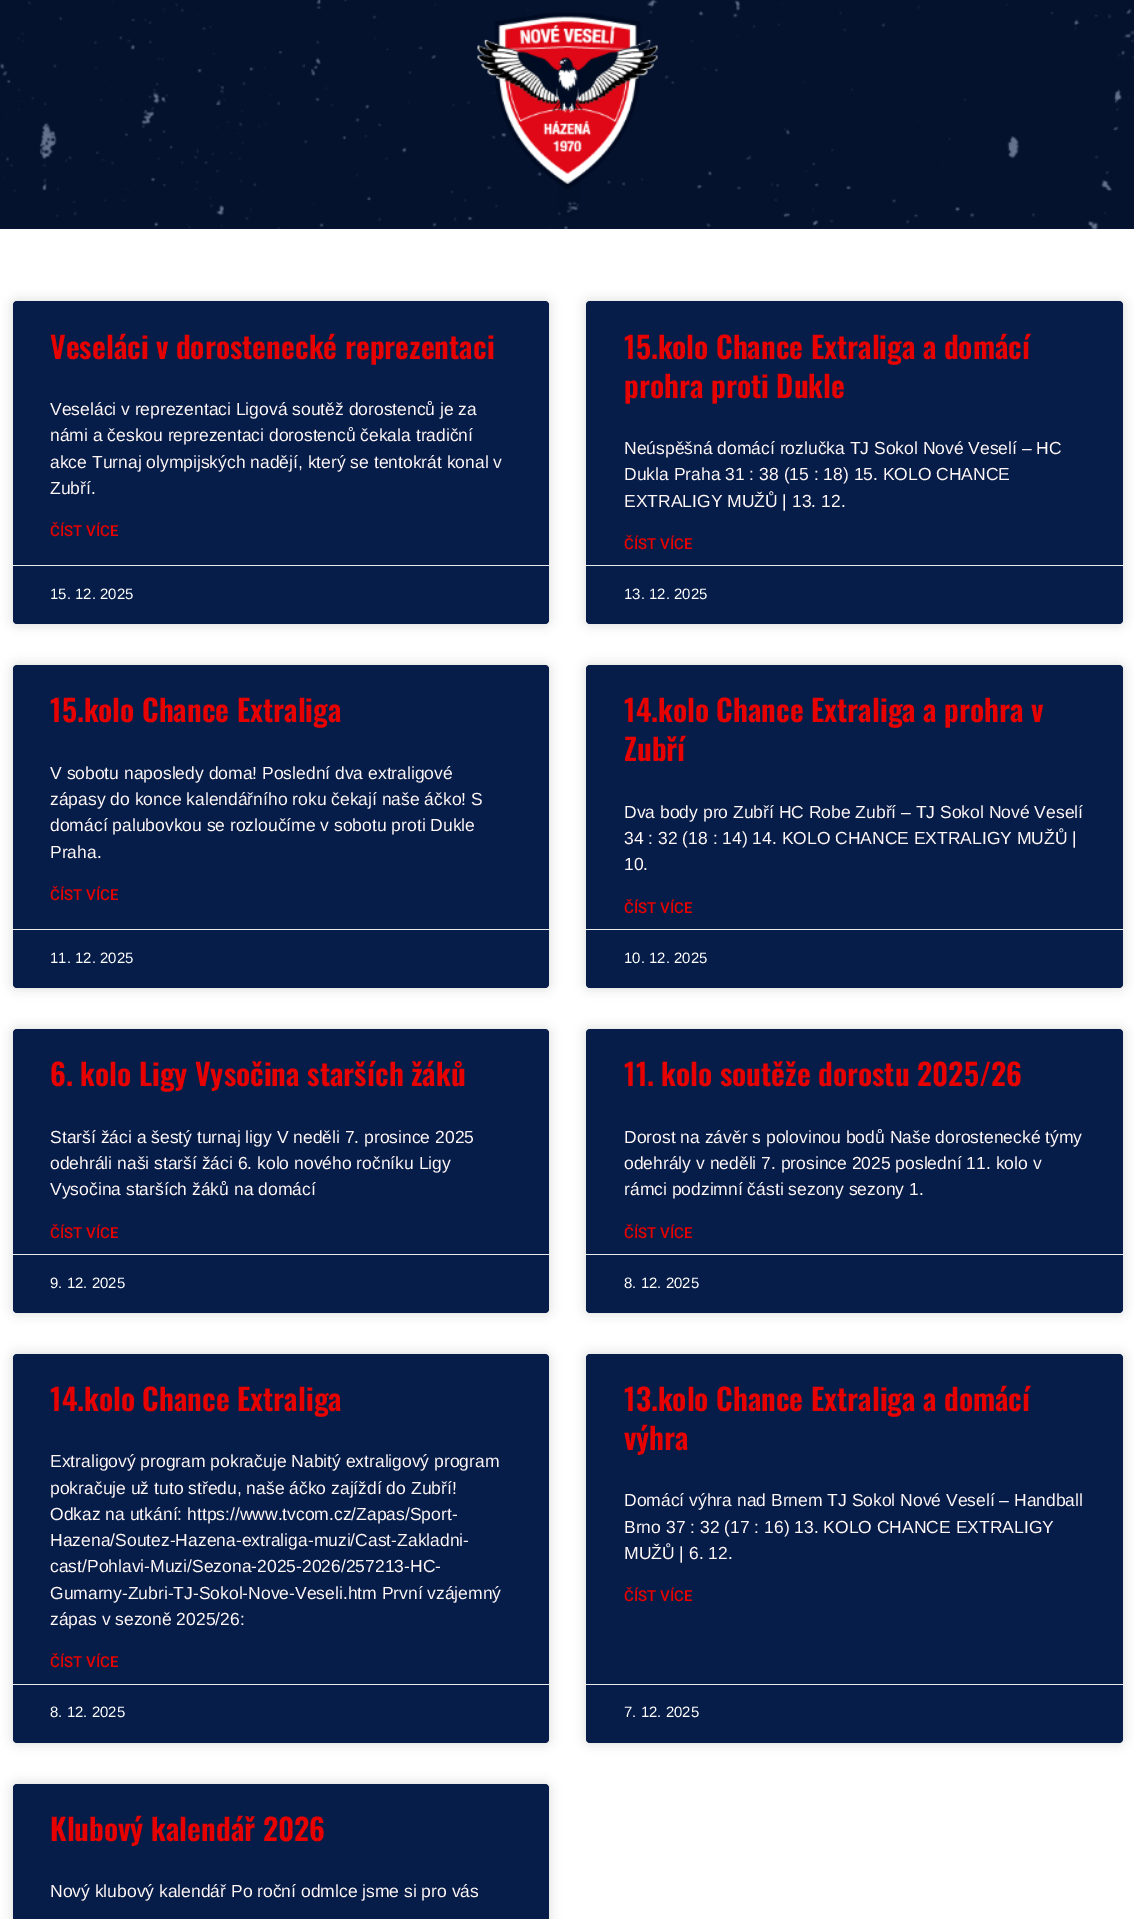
%!PS-Adobe-3.0
%%BoundingBox: 0 0 1134 1919
%%LanguageLevel: 3
%%Pages: 1
%%EndComments
%%BeginProlog
/setalpha { dup .setfillconstantalpha .setstrokeconstantalpha } def
/rrect { 5 dict begin { /r /h /w /y /x } { exch def } forall
  x r add y moveto x w add y 2 copy h add r arct x w add y h add x 1 index r arct
  x y h add x y r arct x y 2 copy exch w add exch r arct closepath end } def
/softshadow { 12 dict begin { /a /b /q /h /w /y /x } { exch def } forall gsave /was 0 def
  9 -2 -9 { dup b mul 4 div /e exch def 1 sub .425 mul 2.718 exch exp 1 add a .99 .min exch div /now exch def
    1 1 now sub 1 was sub div sub setalpha /was now def
    w h .min e 2 mul add 0 gt { x e sub y e sub w e 2 mul add h e 2 mul add
      q e add b .6 mul add w h .min 2 div e add .min 0 .max rrect fill } if } for grestore end } def
/drawimage { 5 dict begin { /h /w /y /x /name } { exch def } forall
  gsave x y translate w h scale
  w h 8 [w 0 0 h 0 0] name (r) file false 3 colorimage grestore end } def
%%EndProlog
%%BeginSetup
<< /PageSize [1134 1919] /PageUsesTransparency true >> setpagedevice
%%EndSetup
%%Page: 1 1
0 .pushpdf14devicefilter
0 1919 translate 1 -1 scale
4 setmiterlimit
1 setgray
0 0 1134 1919 rectfill
(images/1.raw) 0 0 1134 229 drawimage
(images/2.raw) 477 12 181 178 drawimage
0.05 setalpha
0 setgray
558 180 21 35 rectfill
1 setalpha
13 301 536 323 4 6 0.15 softshadow
0.027 0.114 0.286 setrgbcolor
13 301 536 323 4 rrect fill
0.918 setgray
13 565 536 1 rectfill
0 setgray
586 301 537 323 4 6 0.15 softshadow
0.027 0.114 0.286 setrgbcolor
586 301 537 323 4 rrect fill
0.918 setgray
586 565 537 1 rectfill
0 setgray
13 665 536 323 4 6 0.15 softshadow
0.027 0.114 0.286 setrgbcolor
13 665 536 323 4 rrect fill
0.918 setgray
13 929 536 1 rectfill
0 setgray
586 665 537 323 4 6 0.15 softshadow
0.027 0.114 0.286 setrgbcolor
586 665 537 323 4 rrect fill
0.918 setgray
586 929 537 1 rectfill
0 setgray
13 1029 536 284 4 6 0.15 softshadow
0.027 0.114 0.286 setrgbcolor
13 1029 536 284 4 rrect fill
0.918 setgray
13 1254 536 1 rectfill
0 setgray
586 1029 537 284 4 6 0.15 softshadow
0.027 0.114 0.286 setrgbcolor
586 1029 537 284 4 rrect fill
0.918 setgray
586 1254 537 1 rectfill
0 setgray
13 1354 536 389 4 6 0.15 softshadow
0.027 0.114 0.286 setrgbcolor
13 1354 536 389 4 rrect fill
0.918 setgray
13 1684 536 1 rectfill
0 setgray
586 1354 537 389 4 6 0.15 softshadow
0.027 0.114 0.286 setrgbcolor
586 1354 537 389 4 rrect fill
0.918 setgray
586 1684 537 1 rectfill
0 setgray
13 1784 536 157 4 6 0.15 softshadow
0.027 0.114 0.286 setrgbcolor
13 1784 536 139 4 rrect fill
/Oswald-SemiBold [30 0 0 -30 0 0] selectfont
0.902 0 0 setrgbcolor
50 359 moveto (Veseláci v dorostenecké reprezentaci) show
/LiberationSans-Regular [17.5 0 0 -17.5 0 0] selectfont
1 0.969 0.969 setrgbcolor
50 415 moveto (Veseláci v reprezentaci Ligová soutěž dorostenců je za) show
50 441 moveto (námi a českou reprezentaci dorostenců čekala tradiční) show
50 468 moveto (akce Turnaj olympijských nadějí, který se tentokrát konal v) show
50 494 moveto (Zubří.) show
/Roboto-Medium [15 0 0 -15 0 0] selectfont
0.902 0 0 setrgbcolor
50 536 moveto (ČÍST VÍCE) show
/LiberationSans-Regular [15 0 0 -15 0 0] selectfont
1 setgray
50 599 moveto (15. 12. 2025) show
/Oswald-SemiBold [30 0 0 -30 0 0] selectfont
0.902 0 0 setrgbcolor
624 359 moveto (15.kolo Chance Extraliga a domácí) show
624 398 moveto (prohra proti Dukle) show
/LiberationSans-Regular [17.5 0 0 -17.5 0 0] selectfont
1 0.969 0.969 setrgbcolor
624 454 moveto (Neúspěšná domácí rozlučka TJ Sokol Nové Veselí – HC) show
624 480 moveto (Dukla Praha 31 : 38 \(15 : 18\) 15. KOLO CHANCE) show
624 507 moveto (EXTRALIGY MUŽŮ | 13. 12.) show
/Roboto-Medium [15 0 0 -15 0 0] selectfont
0.902 0 0 setrgbcolor
624 549 moveto (ČÍST VÍCE) show
/LiberationSans-Regular [15 0 0 -15 0 0] selectfont
1 setgray
624 599 moveto (13. 12. 2025) show
/Oswald-SemiBold [30 0 0 -30 0 0] selectfont
0.902 0 0 setrgbcolor
50 722 moveto (15.kolo Chance Extraliga) show
/LiberationSans-Regular [17.5 0 0 -17.5 0 0] selectfont
1 0.969 0.969 setrgbcolor
50 779 moveto (V sobotu naposledy doma! Poslední dva extraligové) show
50 805 moveto (zápasy do konce kalendářního roku čekají naše áčko! S) show
50 831 moveto (domácí palubovkou se rozloučíme v sobotu proti Dukle) show
50 858 moveto (Praha.) show
/Roboto-Medium [15 0 0 -15 0 0] selectfont
0.902 0 0 setrgbcolor
50 900 moveto (ČÍST VÍCE) show
/LiberationSans-Regular [15 0 0 -15 0 0] selectfont
1 setgray
50 963 moveto (11. 12. 2025) show
/Oswald-SemiBold [30 0 0 -30 0 0] selectfont
0.902 0 0 setrgbcolor
624 722 moveto (14.kolo Chance Extraliga a prohra v) show
624 761 moveto (Zubří) show
/LiberationSans-Regular [17.5 0 0 -17.5 0 0] selectfont
1 0.969 0.969 setrgbcolor
624 818 moveto (Dva body pro Zubří HC Robe Zubří – TJ Sokol Nové Veselí) show
624 844 moveto (34 : 32 \(18 : 14\) 14. KOLO CHANCE EXTRALIGY MUŽŮ |) show
624 870 moveto (10.) show
/Roboto-Medium [15 0 0 -15 0 0] selectfont
0.902 0 0 setrgbcolor
624 913 moveto (ČÍST VÍCE) show
/LiberationSans-Regular [15 0 0 -15 0 0] selectfont
1 setgray
624 963 moveto (10. 12. 2025) show
/Oswald-SemiBold [30 0 0 -30 0 0] selectfont
0.902 0 0 setrgbcolor
50 1086 moveto (6. kolo Ligy Vysočina starších žáků) show
/LiberationSans-Regular [17.5 0 0 -17.5 0 0] selectfont
1 0.969 0.969 setrgbcolor
50 1143 moveto (Starší žáci a šestý turnaj ligy V neděli 7. prosince 2025) show
50 1169 moveto (odehráli naši starší žáci 6. kolo nového ročníku Ligy) show
50 1195 moveto (Vysočina starších žáků na domácí) show
/Roboto-Medium [15 0 0 -15 0 0] selectfont
0.902 0 0 setrgbcolor
50 1238 moveto (ČÍST VÍCE) show
/LiberationSans-Regular [15 0 0 -15 0 0] selectfont
1 setgray
50 1288 moveto (9. 12. 2025) show
/Oswald-SemiBold [30 0 0 -30 0 0] selectfont
0.902 0 0 setrgbcolor
624 1086 moveto (11. kolo soutěže dorostu 2025/26) show
/LiberationSans-Regular [17.5 0 0 -17.5 0 0] selectfont
1 0.969 0.969 setrgbcolor
624 1143 moveto (Dorost na závěr s polovinou bodů Naše dorostenecké týmy) show
624 1169 moveto (odehrály v neděli 7. prosince 2025 poslední 11. kolo v) show
624 1195 moveto (rámci podzimní části sezony sezony 1.) show
/Roboto-Medium [15 0 0 -15 0 0] selectfont
0.902 0 0 setrgbcolor
624 1238 moveto (ČÍST VÍCE) show
/LiberationSans-Regular [15 0 0 -15 0 0] selectfont
1 setgray
624 1288 moveto (8. 12. 2025) show
/Oswald-SemiBold [30 0 0 -30 0 0] selectfont
0.902 0 0 setrgbcolor
50 1411 moveto (14.kolo Chance Extraliga) show
/LiberationSans-Regular [17.5 0 0 -17.5 0 0] selectfont
1 0.969 0.969 setrgbcolor
50 1467 moveto (Extraligový program pokračuje Nabitý extraligový program) show
50 1494 moveto (pokračuje už tuto středu, naše áčko zajíždí do Zubří!) show
50 1520 moveto (Odkaz na utkání: https://www.tvcom.cz/Zapas/Sport-) show
50 1546 moveto (Hazena/Soutez-Hazena-extraliga-muzi/Cast-Zakladni-) show
50 1572 moveto (cast/Pohlavi-Muzi/Sezona-2025-2026/257213-HC-) show
50 1599 moveto (Gumarny-Zubri-TJ-Sokol-Nove-Veseli.htm První vzájemný) show
50 1625 moveto (zápas v sezoně 2025/26:) show
/Roboto-Medium [15 0 0 -15 0 0] selectfont
0.902 0 0 setrgbcolor
50 1667 moveto (ČÍST VÍCE) show
/LiberationSans-Regular [15 0 0 -15 0 0] selectfont
1 setgray
50 1717 moveto (8. 12. 2025) show
/Oswald-SemiBold [30 0 0 -30 0 0] selectfont
0.902 0 0 setrgbcolor
624 1411 moveto (13.kolo Chance Extraliga a domácí) show
624 1450 moveto (výhra) show
/LiberationSans-Regular [17.5 0 0 -17.5 0 0] selectfont
1 0.969 0.969 setrgbcolor
624 1506 moveto (Domácí výhra nad Brnem TJ Sokol Nové Veselí – Handball) show
624 1533 moveto (Brno 37 : 32 \(17 : 16\) 13. KOLO CHANCE EXTRALIGY) show
624 1559 moveto (MUŽŮ | 6. 12.) show
/Roboto-Medium [15 0 0 -15 0 0] selectfont
0.902 0 0 setrgbcolor
624 1601 moveto (ČÍST VÍCE) show
/LiberationSans-Regular [15 0 0 -15 0 0] selectfont
1 setgray
624 1717 moveto (7. 12. 2025) show
/Oswald-SemiBold [30 0 0 -30 0 0] selectfont
0.902 0 0 setrgbcolor
50 1841 moveto (Klubový kalendář 2026) show
/LiberationSans-Regular [17.5 0 0 -17.5 0 0] selectfont
1 0.969 0.969 setrgbcolor
50 1897 moveto (Nový klubový kalendář Po roční odmlce jsme si pro vás) show
.poppdf14devicefilter showpage
%%EOF
